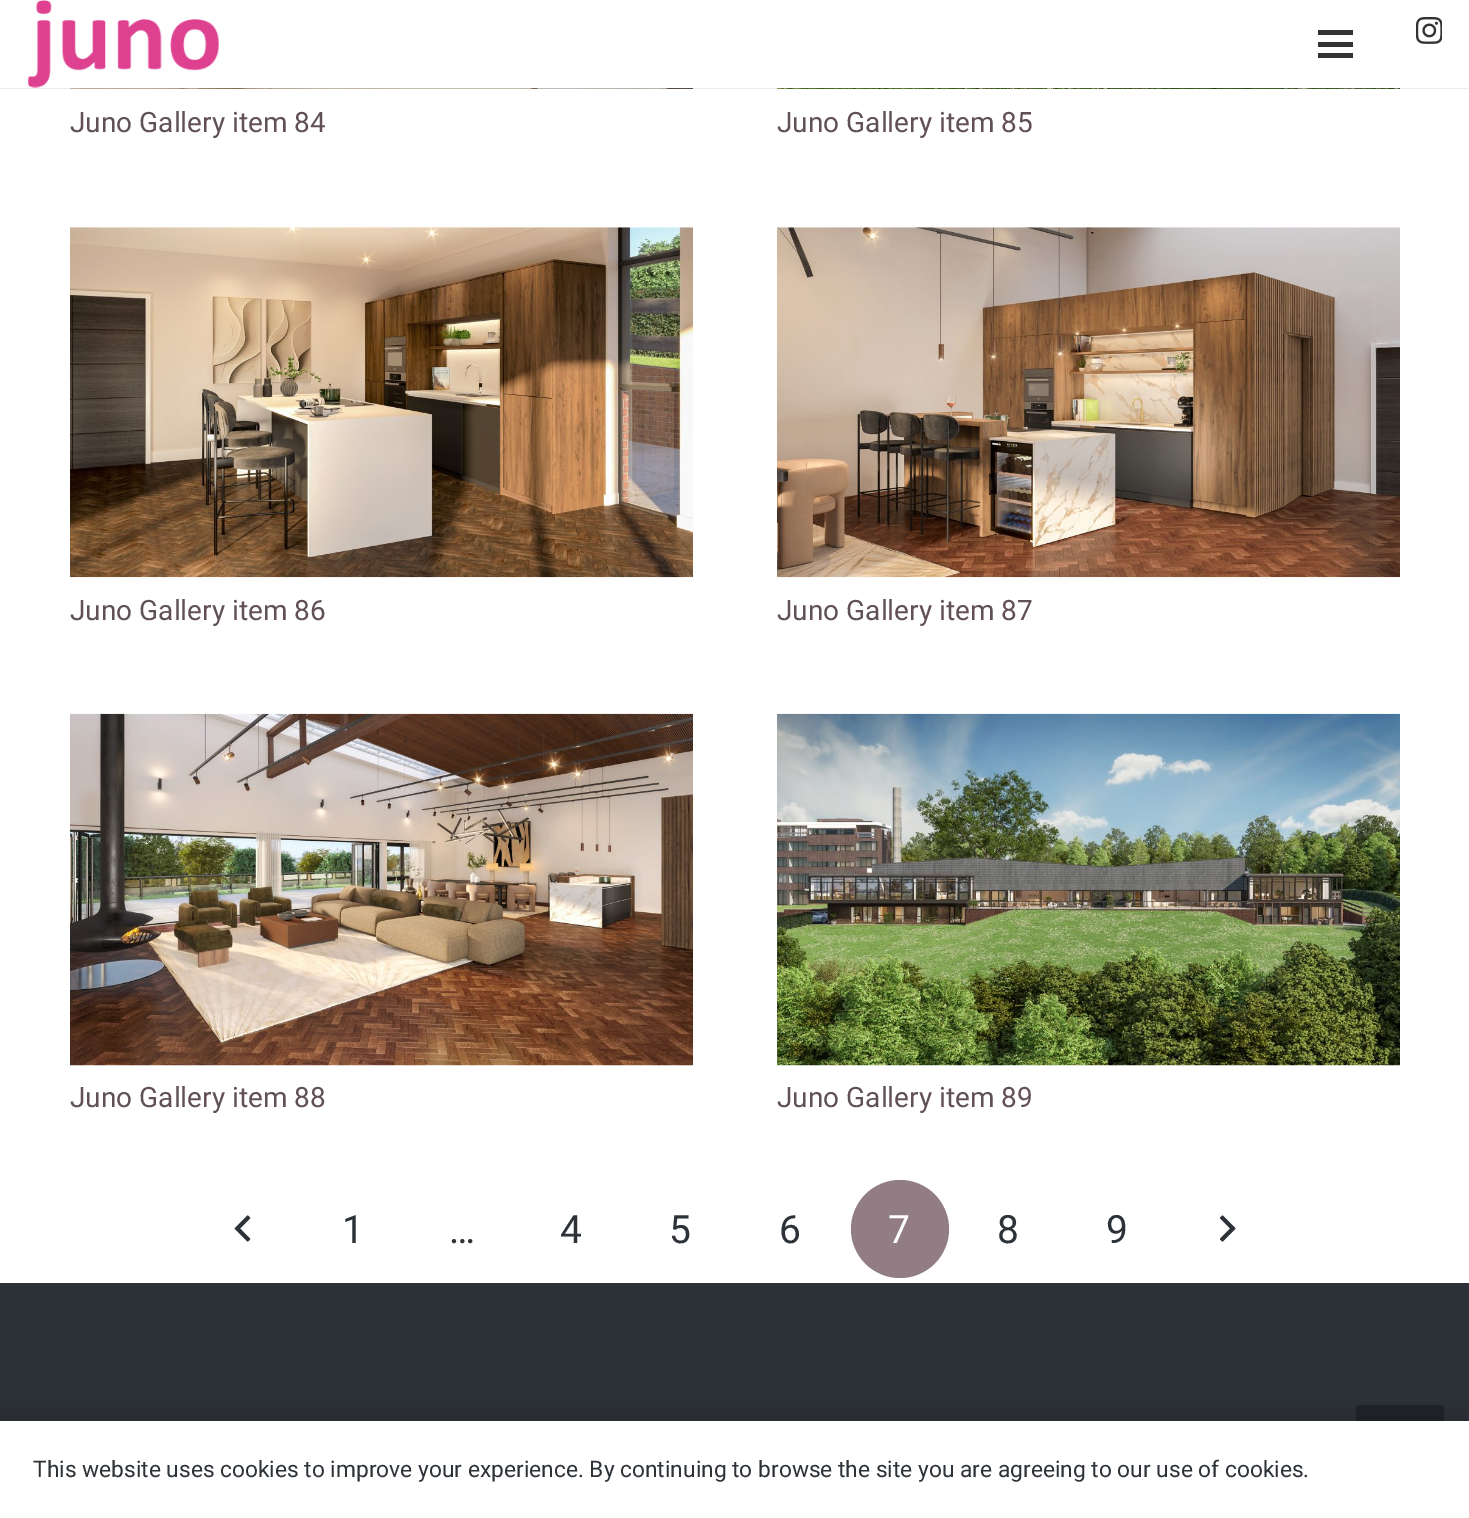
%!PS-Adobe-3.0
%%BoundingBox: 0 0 1469 1518
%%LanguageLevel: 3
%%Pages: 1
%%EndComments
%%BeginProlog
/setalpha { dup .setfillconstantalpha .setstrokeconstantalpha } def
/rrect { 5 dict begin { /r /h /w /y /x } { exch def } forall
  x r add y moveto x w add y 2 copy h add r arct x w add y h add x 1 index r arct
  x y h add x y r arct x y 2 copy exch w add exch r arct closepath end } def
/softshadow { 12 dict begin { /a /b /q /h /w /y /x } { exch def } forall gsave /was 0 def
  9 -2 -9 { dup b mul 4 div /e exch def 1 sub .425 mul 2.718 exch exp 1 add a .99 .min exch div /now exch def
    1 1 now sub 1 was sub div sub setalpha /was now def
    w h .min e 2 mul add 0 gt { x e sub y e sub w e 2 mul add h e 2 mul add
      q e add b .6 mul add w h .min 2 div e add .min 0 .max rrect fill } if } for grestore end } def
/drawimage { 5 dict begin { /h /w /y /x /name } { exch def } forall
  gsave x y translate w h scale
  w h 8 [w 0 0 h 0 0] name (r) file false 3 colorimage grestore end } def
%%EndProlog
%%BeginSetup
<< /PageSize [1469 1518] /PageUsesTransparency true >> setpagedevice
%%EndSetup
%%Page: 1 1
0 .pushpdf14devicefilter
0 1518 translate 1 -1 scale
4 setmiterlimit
1 setgray
0 0 1469 1518 rectfill
(images/3.raw) 70 88 623 1 drawimage
(images/4.raw) 777 88 623 1 drawimage
0.08 setalpha
0 setgray
0 88 1469 1 rectfill
1 setalpha
(images/1.raw) 28 0 191 88 drawimage
0.2 setgray
1318 42 35 5 rectfill
1318 30 35 5 rectfill
1318 53 35 5 rectfill
(images/2.raw) 1416 17 26 27 drawimage
(images/5.raw) 70 227 623 351 drawimage
(images/6.raw) 777 227 623 351 drawimage
(images/7.raw) 70 713 623 353 drawimage
(images/8.raw) 777 713 623 353 drawimage
(images/9.raw) 234 1215 17 27 drawimage
0.573 0.49 0.518 setrgbcolor
newpath 900 1229 49 0 360 arc closepath fill
(images/10.raw) 1219 1215 17 27 drawimage
0.176 0.196 0.22 setrgbcolor
0 1283 1469 138 rectfill
0.125 0.137 0.153 setrgbcolor
1356 1405 88 16 rectfill
0 setgray
0 1412 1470 98 0 13 0.15 softshadow
1 setgray
0 1421 1469 97 rectfill
/Roboto-Regular [28 0 0 -28 0 0] selectfont
0.38 0.318 0.341 setrgbcolor
70 132 moveto (Juno Gallery item 84) show
777 132 moveto (Juno Gallery item 85) show
70 620 moveto (Juno Gallery item 86) show
777 620 moveto (Juno Gallery item 87) show
70 1107 moveto (Juno Gallery item 88) show
777 1107 moveto (Juno Gallery item 89) show
/Roboto-Regular [39 0 0 -39 0 0] selectfont
0.176 0.196 0.22 setrgbcolor
342 1243 moveto (1) show
449 1243 moveto (…) show
560 1243 moveto (4) show
669 1243 moveto (5) show
779 1243 moveto (6) show
1 setgray
888 1243 moveto (7) show
0.176 0.196 0.22 setrgbcolor
997 1243 moveto (8) show
1106 1243 moveto (9) show
/Roboto-Regular [22.75 0 0 -22.75 0 0] selectfont
33 1477 moveto (This website uses cookies to improve your experience. By continuing to browse the site you are agreeing to our use of cookies.) show
.poppdf14devicefilter showpage
%%EOF
